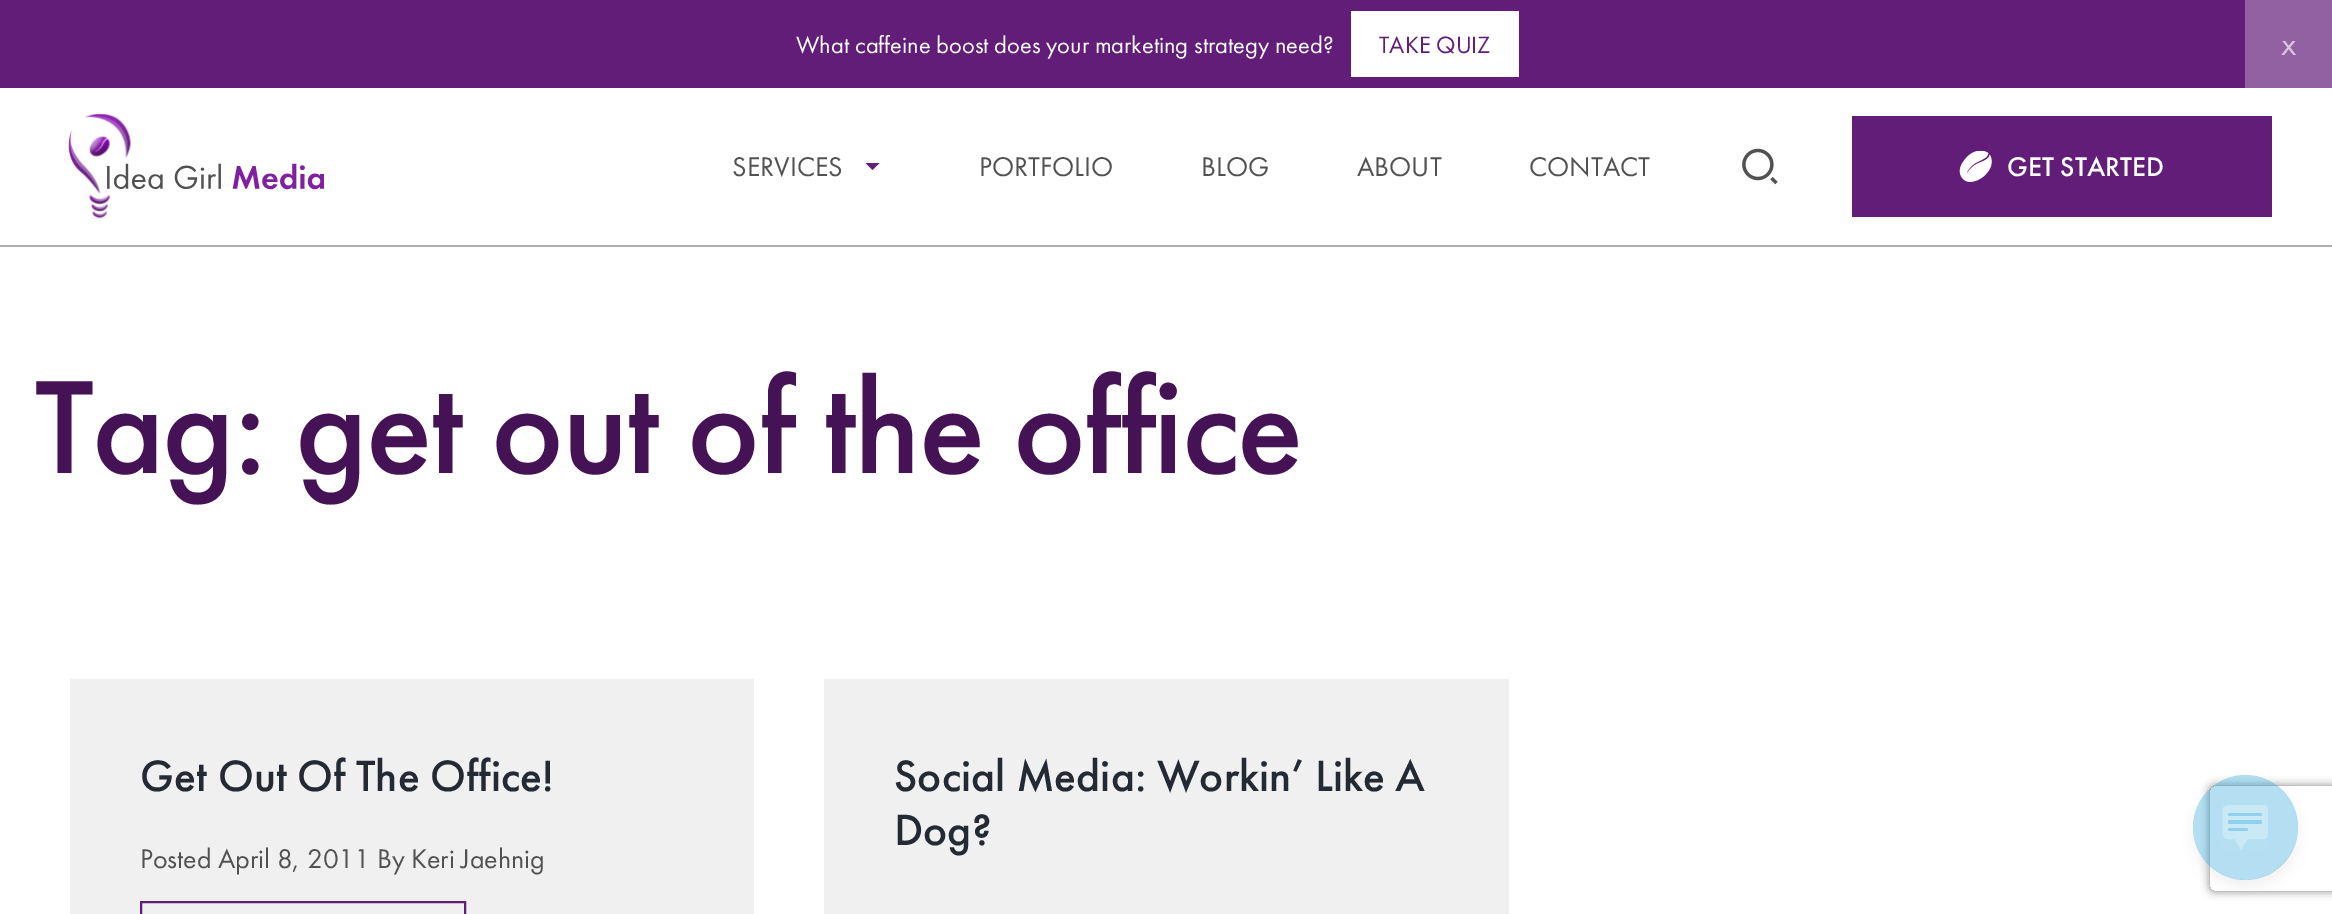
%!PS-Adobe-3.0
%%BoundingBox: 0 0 2332 914
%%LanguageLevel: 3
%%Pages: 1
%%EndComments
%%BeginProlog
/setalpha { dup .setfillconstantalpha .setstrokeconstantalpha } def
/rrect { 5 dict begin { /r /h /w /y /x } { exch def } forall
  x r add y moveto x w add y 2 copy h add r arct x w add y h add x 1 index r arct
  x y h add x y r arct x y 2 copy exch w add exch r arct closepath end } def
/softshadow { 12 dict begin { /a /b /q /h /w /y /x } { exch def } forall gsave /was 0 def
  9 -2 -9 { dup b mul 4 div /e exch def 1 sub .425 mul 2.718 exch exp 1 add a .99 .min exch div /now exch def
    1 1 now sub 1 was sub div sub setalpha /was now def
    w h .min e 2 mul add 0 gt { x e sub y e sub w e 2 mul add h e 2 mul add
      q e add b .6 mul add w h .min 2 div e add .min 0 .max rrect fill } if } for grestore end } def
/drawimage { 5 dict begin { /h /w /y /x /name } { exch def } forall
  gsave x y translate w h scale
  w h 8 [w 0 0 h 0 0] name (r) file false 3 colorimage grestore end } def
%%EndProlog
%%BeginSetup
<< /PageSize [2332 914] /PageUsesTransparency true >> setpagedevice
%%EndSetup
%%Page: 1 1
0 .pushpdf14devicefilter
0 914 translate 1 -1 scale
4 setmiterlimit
1 setgray
0 0 2332 914 rectfill
0.384 0.114 0.475 setrgbcolor
0 0 2245 88 rectfill
1 setgray
1351 11 168 66 rectfill
0.569 0.38 0.631 setrgbcolor
2245 0 87 88 rectfill
0.698 0.682 0.682 setrgbcolor
0 245 2332 2 rectfill
(images/1.raw) 68 114 256 105 drawimage
0.384 0.114 0.475 setrgbcolor
newpath 872.5 170 moveto 865.5 163 lineto 879.5 163 lineto closepath fill
(images/2.raw) 1742 148 36 37 drawimage
1852 116 420 101 rectfill
(images/3.raw) 1959 151 33 31 drawimage
0.941 setgray
70 679 684 235 rectfill
0.384 0.114 0.475 setrgbcolor
2 setlinewidth
141 902 324 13 rectstroke
0.941 setgray
824 679 685 235 rectfill
gsave
newpath 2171 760 moveto 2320 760 lineto 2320 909 lineto 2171 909 lineto closepath 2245.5 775 moveto 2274.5 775 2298 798.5 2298 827.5 curveto 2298 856.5 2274.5 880 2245.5 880 curveto 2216.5 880 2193 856.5 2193 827.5 curveto 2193 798.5 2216.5 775 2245.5 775 curveto closepath eoclip newpath
0 setgray
2193 782 105 105 52.5 7 0.06 softshadow
grestore
gsave
newpath 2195 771 moveto 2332 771 lineto 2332 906 lineto 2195 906 lineto closepath 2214 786 moveto 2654 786 lineto 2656 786 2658 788 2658 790 curveto 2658 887 lineto 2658 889 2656 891 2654 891 curveto 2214 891 lineto 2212 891 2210 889 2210 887 curveto 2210 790 lineto 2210 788 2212 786 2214 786 curveto closepath eoclip newpath
0.502 setgray
2210 786 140 105 4 4.5 1 softshadow
grestore
0.3 setalpha
0.02 0.588 0.831 setrgbcolor
newpath 2245.5 827.5 52.5 0 360 arc closepath fill
1 setalpha
(images/4.raw) 2222 805 46 45 drawimage
/FuturaPT-Regular [24.5 0 0 -24.5 0 0] selectfont
1 setgray
796 53 moveto (What caffeine boost does your marketing strategy need?) show
0.384 0.114 0.475 setrgbcolor
1379 53 moveto (TAKE QUIZ) show
/FuturaPT-Regular [34 0 0 -34 0 0] selectfont
0.847 0.78 0.871 setrgbcolor
2281 55 moveto (x) show
/FuturaPT-Regular [28 0 0 -28 0 0] selectfont
0.318 setgray
732 176 moveto (SERVICES) show
979 176 moveto (PORTFOLIO) show
1201 176 moveto (BLOG) show
1357 176 moveto (ABOUT) show
1529 176 moveto (CONTACT) show
/FuturaPT-Medium [28 0 0 -28 0 0] selectfont
1 setgray
2007 176 moveto (GET STARTED) show
/FuturaPT-Medium [137.6 0 0 -137.6 0 0] selectfont
0.271 0.071 0.337 setrgbcolor
35 473 moveto -2.2 0 (Tag: get out of the office) ashow
/FuturaPT-Medium [45.5 0 0 -45.5 0 0] selectfont
0.137 0.165 0.204 setrgbcolor
140 791 moveto (Get Out Of The Office!) show
/FuturaPT-Regular [28 0 0 -28 0 0] selectfont
0.318 setgray
140 868 moveto (Posted April 8, 2011 By Keri Jaehnig) show
/FuturaPT-Medium [45.5 0 0 -45.5 0 0] selectfont
0.137 0.165 0.204 setrgbcolor
894 791 moveto (Social Media: Workin’ Like A) show
894 845 moveto (Dog?) show
.poppdf14devicefilter showpage
%%EOF
